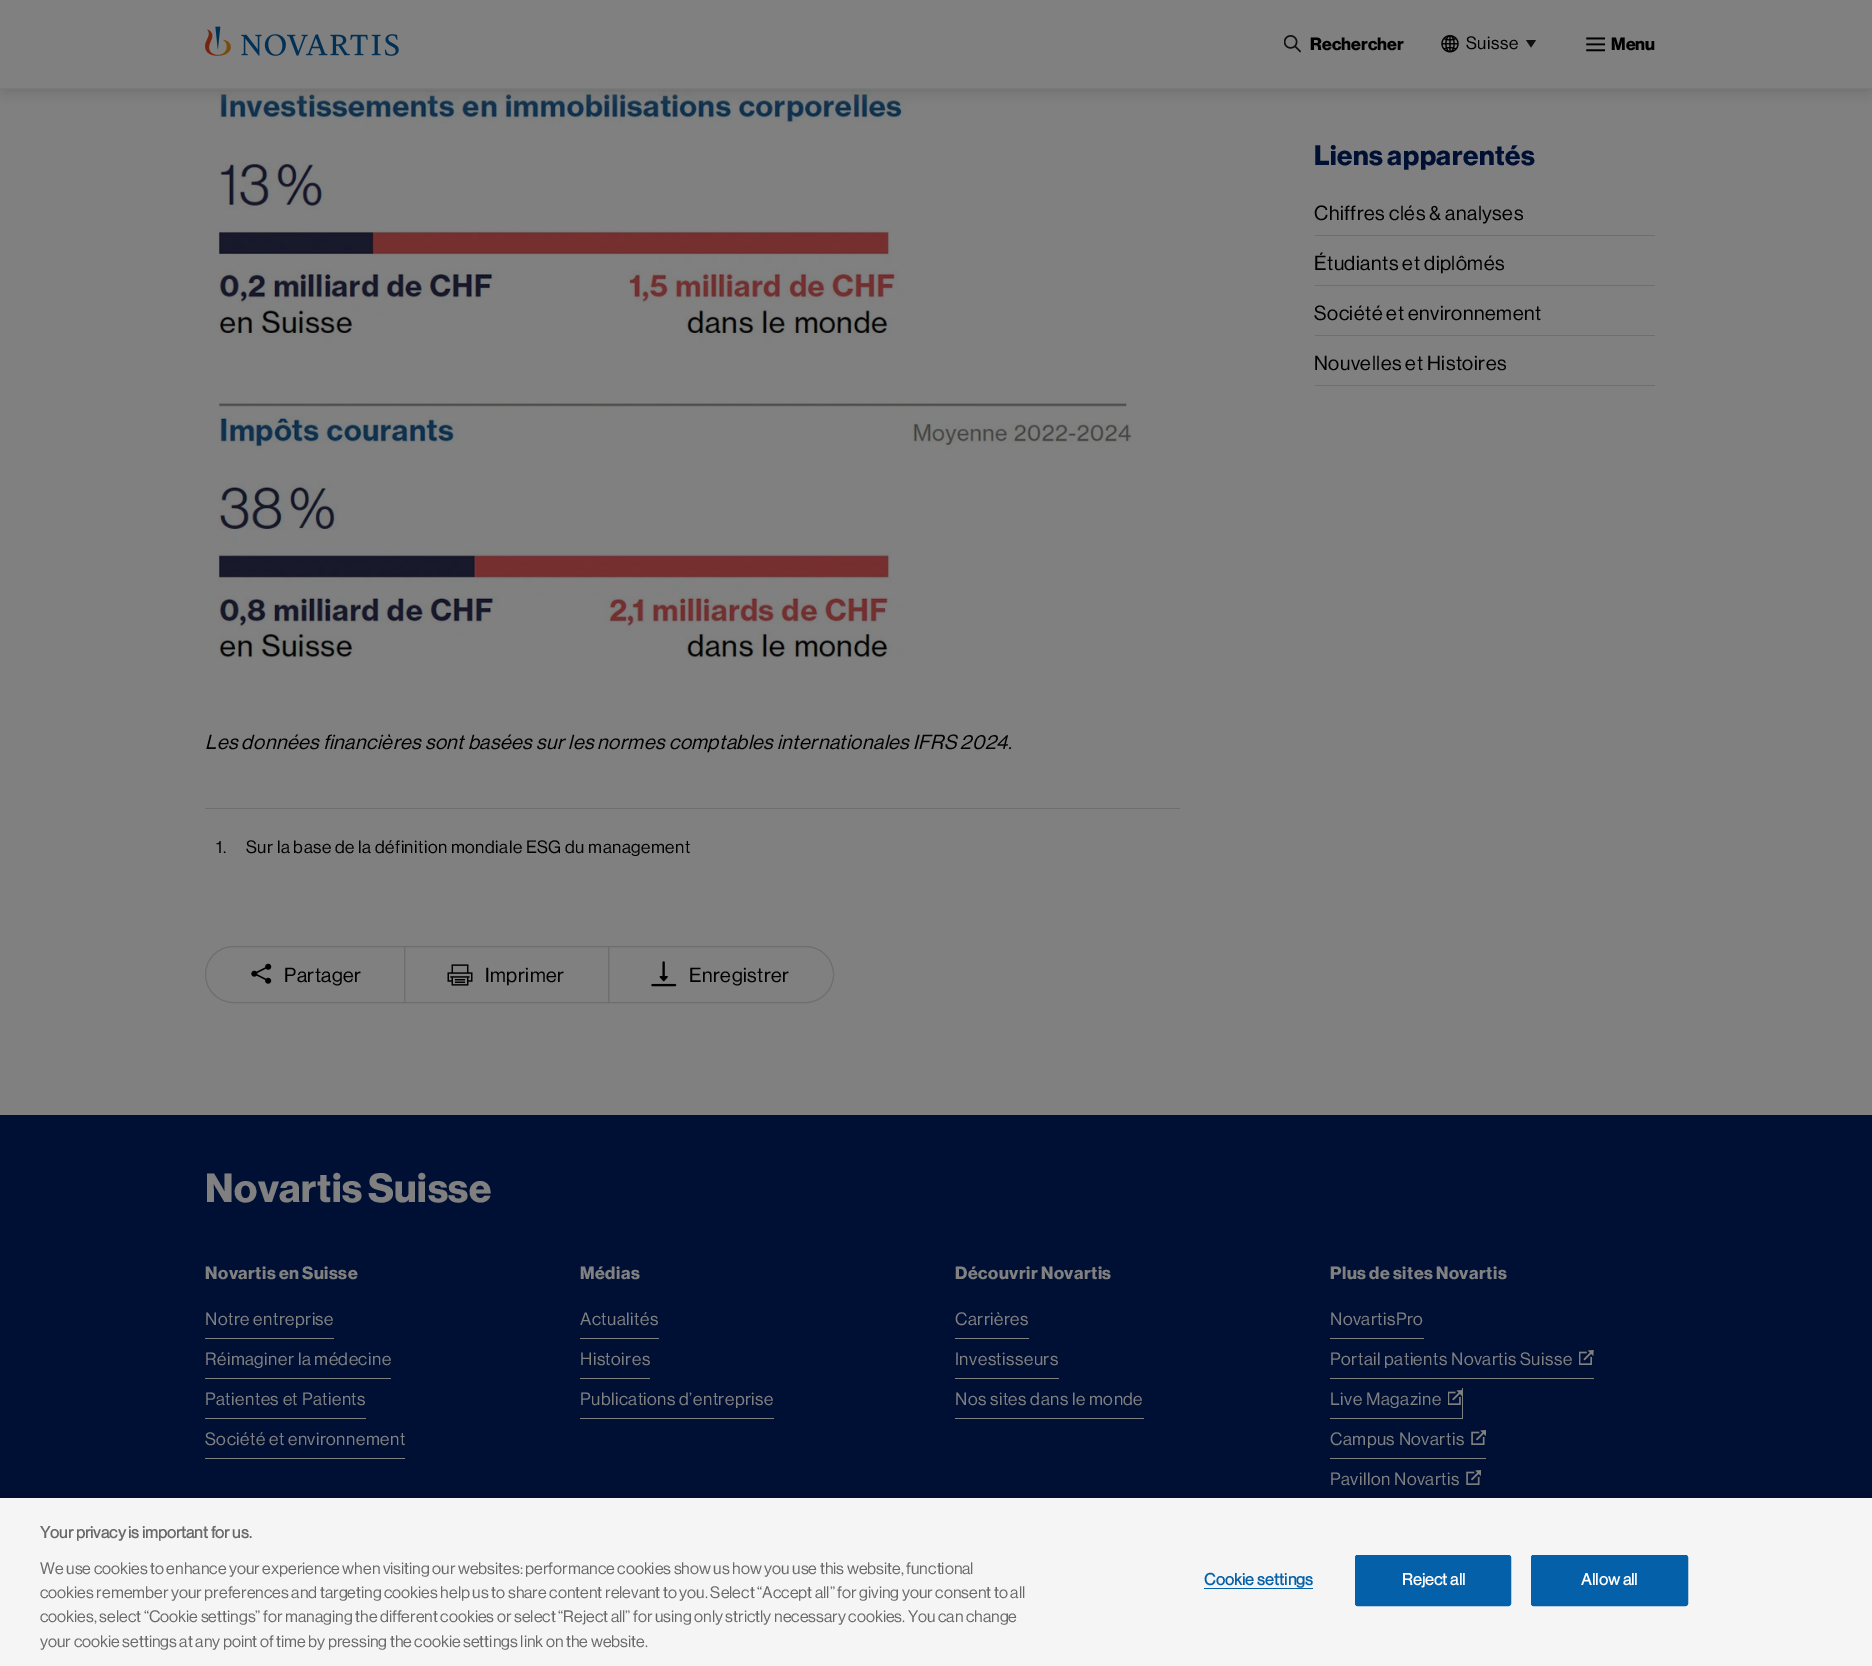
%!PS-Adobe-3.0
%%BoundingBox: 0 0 1872 1666
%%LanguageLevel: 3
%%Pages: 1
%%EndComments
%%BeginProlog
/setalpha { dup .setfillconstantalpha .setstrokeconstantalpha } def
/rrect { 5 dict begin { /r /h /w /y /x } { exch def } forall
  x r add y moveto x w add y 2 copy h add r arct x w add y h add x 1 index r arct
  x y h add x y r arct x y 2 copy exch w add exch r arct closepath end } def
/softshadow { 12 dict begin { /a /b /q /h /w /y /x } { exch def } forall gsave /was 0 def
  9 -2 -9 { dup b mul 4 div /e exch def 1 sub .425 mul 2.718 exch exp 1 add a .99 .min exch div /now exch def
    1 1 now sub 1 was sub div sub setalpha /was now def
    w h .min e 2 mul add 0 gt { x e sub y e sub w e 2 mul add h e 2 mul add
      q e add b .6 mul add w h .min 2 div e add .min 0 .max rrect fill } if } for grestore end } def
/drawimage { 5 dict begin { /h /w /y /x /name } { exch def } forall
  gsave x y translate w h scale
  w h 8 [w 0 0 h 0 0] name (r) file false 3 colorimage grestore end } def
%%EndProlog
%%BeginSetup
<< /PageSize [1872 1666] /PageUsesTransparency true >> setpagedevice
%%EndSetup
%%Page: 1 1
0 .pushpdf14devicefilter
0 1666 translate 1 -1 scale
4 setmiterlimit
0.502 setgray
0 0 1872 1666 rectfill
(images/5.raw) 217 89 915 569 drawimage
gsave
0 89 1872 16 rectclip
0.416 setgray
5 11 1863 79 0 7.5 1 softshadow
grestore
0.475 0.475 0.478 setrgbcolor
0 88 1872 1 rectfill
(images/1.raw) 205 26 194 30 drawimage
(images/2.raw) 1284 35 17 18 drawimage
(images/3.raw) 1441 35 18 18 drawimage
0.067 0.063 0.063 setrgbcolor
newpath 1526 40 moveto 1536 40 lineto 1531 47.5 lineto closepath fill
(images/4.raw) 1586 37 19 15 drawimage
0.431 setgray
1315 235 340 1 rectfill
1315 285 340 1 rectfill
1315 335 340 1 rectfill
1315 385 340 1 rectfill
205 808 975 1 rectfill
newpath 233.5 946.5 moveto 404.5 946.5 lineto 404.5 1002.5 lineto 233.5 1002.5 lineto 218 1002.5 205.5 990 205.5 974.5 curveto 205.5 959 218 946.5 233.5 946.5 curveto closepath stroke
(images/6.raw) 251 963 21 21 drawimage
404.5 946.5 204 56 rectstroke
(images/7.raw) 447 964 26 22 drawimage
newpath 608.5 946.5 moveto 805.5 946.5 lineto 821 946.5 833.5 959 833.5 974.5 curveto 833.5 990 821 1002.5 805.5 1002.5 curveto 608.5 1002.5 lineto closepath stroke
(images/8.raw) 651 961 26 26 drawimage
0 0.063 0.204 setrgbcolor
0 1115 1872 383 rectfill
0.502 setgray
newpath 205 1338 moveto 205 1339 lineto 334 1339 lineto 334 1308 lineto 334 1338 lineto closepath fill
205 1378 186 1 rectfill
205 1418 161 1 rectfill
205 1458 200 1 rectfill
newpath 580 1338 moveto 580 1339 lineto 659 1339 lineto 659 1308 lineto 659 1338 lineto closepath fill
580 1378 70 1 rectfill
newpath 580 1418 moveto 580 1419 lineto 774 1419 lineto 774 1388 lineto 774 1418 lineto closepath fill
newpath 955 1338 moveto 955 1339 lineto 1029 1339 lineto 1029 1308 lineto 1029 1338 lineto closepath fill
newpath 955 1378 moveto 955 1379 lineto 1059 1379 lineto 1059 1348 lineto 1059 1378 lineto closepath fill
newpath 955 1418 moveto 955 1419 lineto 1144 1419 lineto 1144 1388 lineto 1144 1418 lineto closepath fill
newpath 1330 1338 moveto 1330 1339 lineto 1424 1339 lineto 1424 1308 lineto 1424 1338 lineto closepath fill
newpath 1330 1378 moveto 1330 1379 lineto 1594 1379 lineto 1594 1348 lineto 1594 1378 lineto closepath fill
(images/9.raw) 1579 1350 15 15 drawimage
newpath 1330 1418 moveto 1330 1419 lineto 1463 1419 lineto 1463 1388 lineto 1462 1388 lineto 1462 1418 lineto closepath fill
(images/10.raw) 1448 1390 14 15 drawimage
1330 1458 156 1 rectfill
(images/11.raw) 1471 1430 15 15 drawimage
(images/11.raw) 1466 1470 15 15 drawimage
0 setgray
0 1498 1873 168 0 11 0.2 softshadow
0.961 setgray
0 1498 1872 168 rectfill
0.016 0.376 0.663 setrgbcolor
1204 1588 109 1 rectfill
1355.5 1555.5 155 50 2 rrect gsave fill grestore
stroke
1531.5 1555.5 156 50 2 rrect gsave fill grestore
stroke
/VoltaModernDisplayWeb-Bold [17.5 0 0 -17.5 0 0] selectfont
0 setgray
1310 50 moveto (Rechercher) show
/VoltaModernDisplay-Regular [17.5 0 0 -17.5 0 0] selectfont
1466 49 moveto 0.5 0 (Suisse) ashow
/VoltaModernDisplayWeb-Bold [17.5 0 0 -17.5 0 0] selectfont
1611 50 moveto (Menu) show
/VoltaModernDisplayWeb-Bold [27.5 0 0 -27.5 0 0] selectfont
0 0.063 0.204 setrgbcolor
1314 165 moveto 0.5 0 (Liens apparentés) ashow
/VoltaModernDisplay-Regular [20 0 0 -20 0 0] selectfont
0 setgray
1314 220 moveto 0.5 0 (Chiffres clés & analyses) ashow
1314 270 moveto 0.5 0 (Étudiants et diplômés) ashow
1314 320 moveto 0.5 0 (Société et environnement) ashow
1314 370 moveto 0.5 0 (Nouvelles et Histoires) ashow
/VoltaModernDisplay-Italic [20 0 0 -20 0 0] selectfont
205 749 moveto 0.5 0 (Les données financières sont basées sur les normes comptables internationales IFRS 2024.) ashow
/VoltaModernDisplay-Regular [17.5 0 0 -17.5 0 0] selectfont
216 853 moveto 0.5 0 (1.) ashow
246 853 moveto 0.5 0 (Sur la base de la définition mondiale ESG du management) ashow
/VoltaModernDisplay-Regular [20 0 0 -20 0 0] selectfont
284 982 moveto 0.5 0 (Partager) ashow
485 982 moveto 0.5 0 (Imprimer) ashow
689 982 moveto 0.5 0 (Enregistrer) ashow
/VoltaModernDisplayWeb-Bold [40 0 0 -40 0 0] selectfont
0.502 setgray
205 1202 moveto 0.5 0 (Novartis Suisse) ashow
/VoltaModernDisplayWeb-Bold [17.5 0 0 -17.5 0 0] selectfont
205 1279 moveto 0.5 0 (Novartis en Suisse) ashow
/VoltaModernDisplay-Regular [17.5 0 0 -17.5 0 0] selectfont
205 1325 moveto 0.5 0 (Notre entreprise) ashow
205 1365 moveto 0.5 0 (Réimaginer la médecine) ashow
205 1405 moveto 0.5 0 (Patientes et Patients) ashow
205 1445 moveto 0.5 0 (Société et environnement) ashow
/VoltaModernDisplayWeb-Bold [17.5 0 0 -17.5 0 0] selectfont
580 1279 moveto 0.5 0 (Médias) ashow
/VoltaModernDisplay-Regular [17.5 0 0 -17.5 0 0] selectfont
580 1325 moveto 0.5 0 (Actualités) ashow
580 1365 moveto 0.5 0 (Histoires) ashow
580 1405 moveto 0.5 0 (Publications d’entreprise) ashow
/VoltaModernDisplayWeb-Bold [17.5 0 0 -17.5 0 0] selectfont
955 1279 moveto 0.5 0 (Découvrir Novartis) ashow
/VoltaModernDisplay-Regular [17.5 0 0 -17.5 0 0] selectfont
955 1325 moveto 0.5 0 (Carrières) ashow
955 1365 moveto 0.5 0 (Investisseurs) ashow
955 1405 moveto 0.5 0 (Nos sites dans le monde) ashow
/VoltaModernDisplayWeb-Bold [17.5 0 0 -17.5 0 0] selectfont
1330 1279 moveto 0.5 0 (Plus de sites Novartis) ashow
/VoltaModernDisplay-Regular [17.5 0 0 -17.5 0 0] selectfont
1330 1325 moveto 0.5 0 (NovartisPro) ashow
1330 1365 moveto 0.5 0 (Portail patients Novartis Suisse) ashow
1330 1405 moveto 0.5 0 (Live Magazine) ashow
1330 1445 moveto 0.5 0 (Campus Novartis) ashow
1330 1485 moveto 0.5 0 (Pavillon Novartis) ashow
/VoltaModernDisplay-Bold [16.25 0 0 -16.25 0 0] selectfont
0.412 setgray
40 1538 moveto (Your privacy is important for us.) show
/VoltaModernDisplay-Regular [16.25 0 0 -16.25 0 0] selectfont
40 1574 moveto (We use cookies to enhance your experience when visiting our websites: performance cookies show us how you use this website, functional) show
40 1598 moveto (cookies remember your preferences and targeting cookies help us to share content relevant to you. Select “Accept all” for giving your consent to all) show
40 1622 moveto (cookies, select “Cookie settings” for managing the different cookies or select “Reject all” for using only strictly necessary cookies. You can change) show
40 1647 moveto (your cookie settings at any point of time by pressing the cookie settings link on the website.) show
/VoltaModernDisplay-Bold [16.25 0 0 -16.25 0 0] selectfont
0.016 0.376 0.663 setrgbcolor
1204 1585 moveto 0.2 0 (Cookie settings) ashow
1 setgray
1402 1585 moveto 0.2 0 (Reject all) ashow
1581 1585 moveto 0.2 0 (Allow all) ashow
.poppdf14devicefilter showpage
%%EOF
